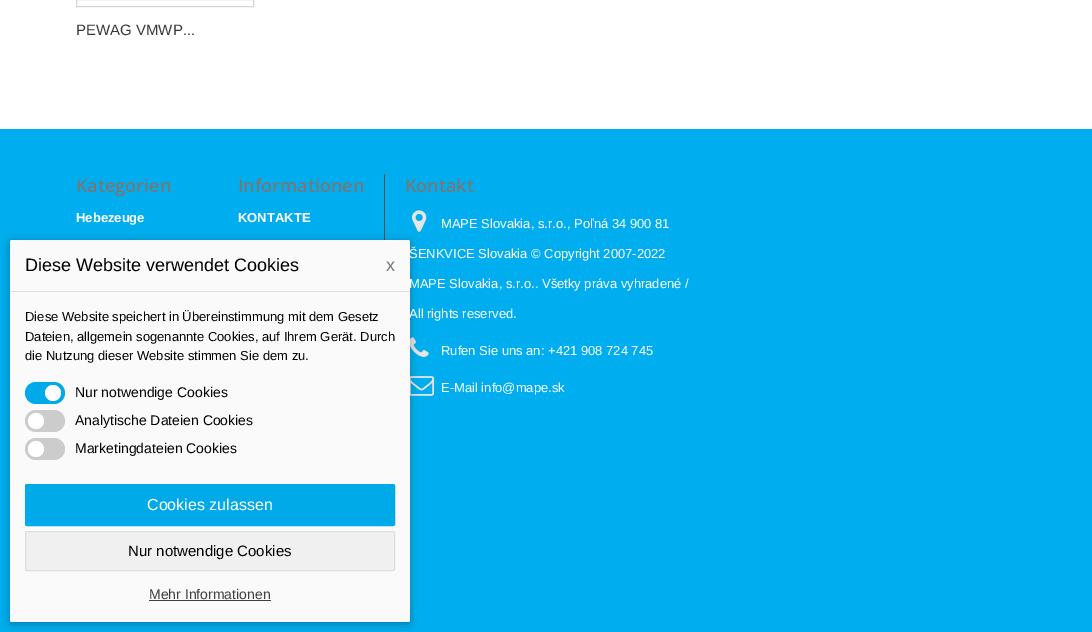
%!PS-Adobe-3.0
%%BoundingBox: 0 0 1092 632
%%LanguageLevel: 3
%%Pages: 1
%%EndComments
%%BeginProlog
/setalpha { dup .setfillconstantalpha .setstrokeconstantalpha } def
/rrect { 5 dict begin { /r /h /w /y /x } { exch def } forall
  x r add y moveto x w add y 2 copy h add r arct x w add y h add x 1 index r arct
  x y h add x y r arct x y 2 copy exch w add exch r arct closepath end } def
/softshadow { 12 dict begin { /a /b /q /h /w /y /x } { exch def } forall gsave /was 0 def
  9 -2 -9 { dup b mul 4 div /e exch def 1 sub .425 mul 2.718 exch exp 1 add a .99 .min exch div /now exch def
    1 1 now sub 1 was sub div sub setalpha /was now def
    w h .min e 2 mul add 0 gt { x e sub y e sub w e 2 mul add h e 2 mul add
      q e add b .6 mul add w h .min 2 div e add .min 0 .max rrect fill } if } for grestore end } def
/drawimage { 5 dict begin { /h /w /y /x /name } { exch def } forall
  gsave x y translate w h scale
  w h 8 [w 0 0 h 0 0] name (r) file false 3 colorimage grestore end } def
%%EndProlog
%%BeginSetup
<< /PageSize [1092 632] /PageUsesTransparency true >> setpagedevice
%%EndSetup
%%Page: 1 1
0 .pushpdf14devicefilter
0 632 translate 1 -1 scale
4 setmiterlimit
0 0.682 0.937 setrgbcolor
0 0 1092 632 rectfill
1 setgray
0 0 1092 129 rectfill
0.839 0.831 0.831 setrgbcolor
76.5 -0.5 177 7 rectstroke
0.318 setgray
384 174 1 66 rectfill
(images/1.raw) 412 210 15 22 drawimage
(images/2.raw) 410 337 19 20 drawimage
(images/3.raw) 410 376 24 20 drawimage
0 setgray
10 242 400 382 2 5 0.3 softshadow
/LiberationSans-Regular [15 0 0 -15 0 0] selectfont
0.227 0.224 0.224 setrgbcolor
76 35 moveto (PEWAG VMWP...) show
/OpenSans-SemiBold [18 0 0 -18 0 0] selectfont
0.467 setgray
76 192 moveto (Kategorien) show
/LiberationSans-Bold [13 0 0 -13 0 0] selectfont
1 setgray
76 222 moveto (Hebezeuge) show
/OpenSans-SemiBold [18 0 0 -18 0 0] selectfont
0.467 setgray
238 192 moveto (Informationen) show
/LiberationSans-Bold [13 0 0 -13 0 0] selectfont
1 setgray
238 222 moveto (KONTAKTE) show
/OpenSans-SemiBold [18 0 0 -18 0 0] selectfont
0.467 setgray
405 192 moveto (Kontakt) show
/LiberationSans-Regular [13 0 0 -13 0 0] selectfont
1 setgray
441 228 moveto (MAPE Slovakia, s.r.o., Poľná 34 900 81) show
409 258 moveto (ŠENKVICE Slovakia © Copyright 2007-2022) show
409 288 moveto (MAPE Slovakia, s.r.o.. Všetky práva vyhradené /) show
409 318 moveto (All rights reserved.) show
441 355 moveto (Rufen Sie uns an: +421 908 724 745) show
441 392 moveto (E-Mail info@mape.sk) show
0.98 setgray
10 240 400 382 2 rrect fill
0.871 0.886 0.902 setrgbcolor
10 291 400 1 rectfill
/LiberationSans-Regular [18 0 0 -18 0 0] selectfont
0 setgray
25 271 moveto (Diese Website verwendet Cookies) show
0.467 setgray
386 271 moveto (x) show
/LiberationSans-Regular [13 0 0 -13 0 0] selectfont
0 setgray
25 321 moveto (Diese Website speichert in Übereinstimmung mit dem Gesetz) show
25 341 moveto (Dateien, allgemein sogenannte Cookies, auf Ihrem Gerät. Durch) show
25 360 moveto (die Nutzung dieser Website stimmen Sie dem zu.) show
0 0.667 0.914 setrgbcolor
25 382 40 22 11 rrect fill
1 setgray
newpath 53 393 8 0 360 arc closepath fill
/LiberationSans-Regular [14 0 0 -14 0 0] selectfont
0 setgray
75 397 moveto (Nur notwendige Cookies) show
0.8 setgray
25 410 40 22 11 rrect fill
1 setgray
newpath 36 421 8 0 360 arc closepath fill
0 setgray
75 425 moveto (Analytische Dateien Cookies) show
0.8 setgray
25 438 40 22 11 rrect fill
1 setgray
newpath 36 449 8 0 360 arc closepath fill
0 setgray
75 453 moveto (Marketingdateien Cookies) show
0 0.667 0.914 setrgbcolor
25.5 484.5 369 41 1.5 rrect gsave fill grestore
stroke
/LiberationSans-Regular [16 0 0 -16 0 0] selectfont
1 setgray
147 510 moveto (Cookies zulassen) show
0.941 setgray
25.5 531.5 369 39 1.5 rrect gsave fill grestore
0.867 setgray
stroke
/LiberationSans-Regular [15 0 0 -15 0 0] selectfont
0 setgray
128 556 moveto (Nur notwendige Cookies) show
/LiberationSans-Regular [14 0 0 -14 0 0] selectfont
0.247 setgray
149 599 moveto (Mehr Informationen) show
149 600 122 1 rectfill
.poppdf14devicefilter showpage
%%EOF
